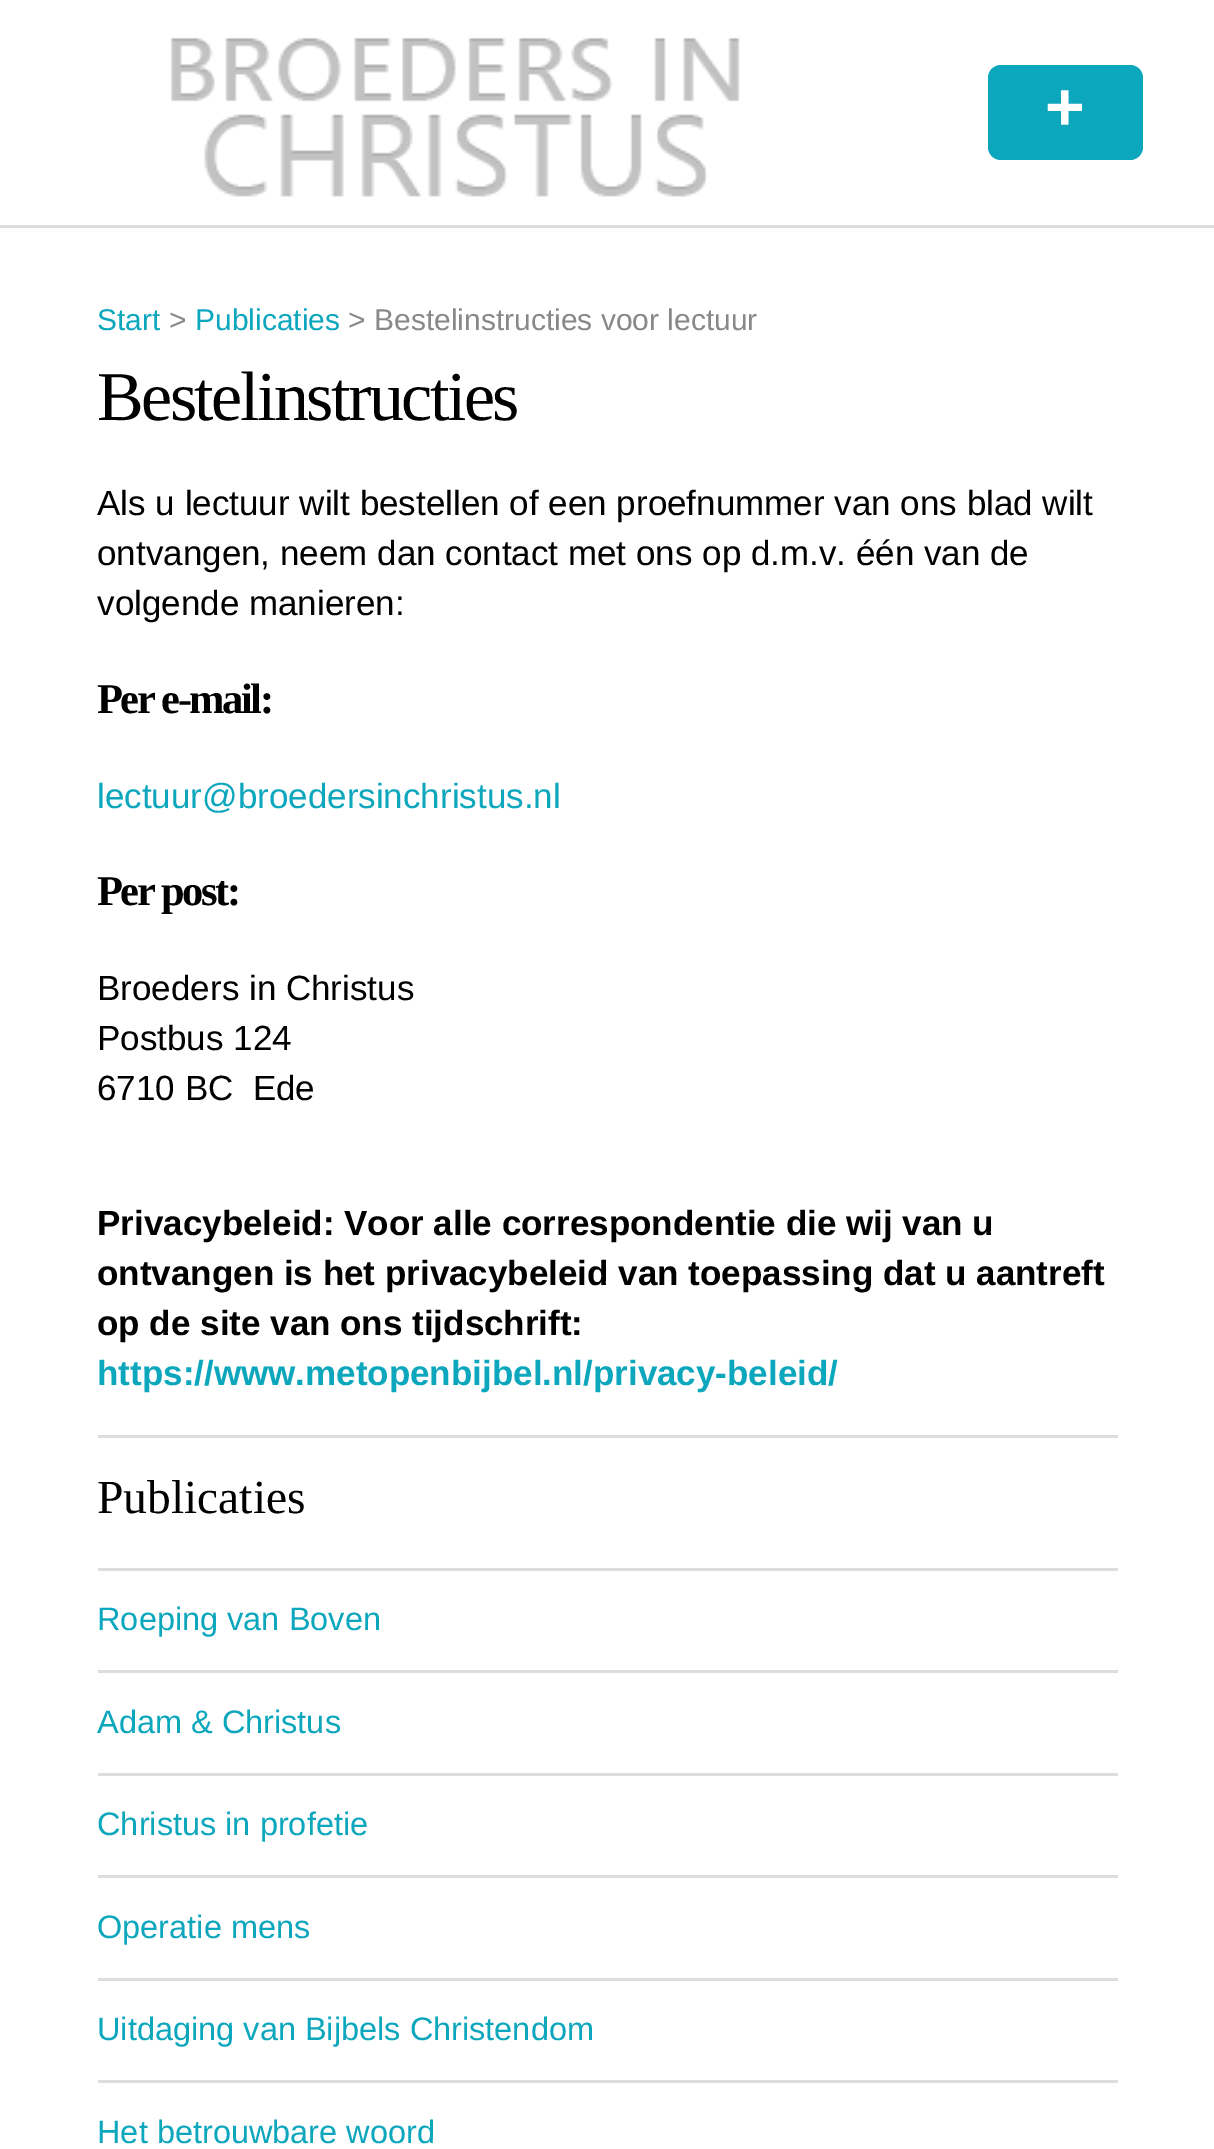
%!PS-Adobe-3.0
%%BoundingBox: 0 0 1214 2149
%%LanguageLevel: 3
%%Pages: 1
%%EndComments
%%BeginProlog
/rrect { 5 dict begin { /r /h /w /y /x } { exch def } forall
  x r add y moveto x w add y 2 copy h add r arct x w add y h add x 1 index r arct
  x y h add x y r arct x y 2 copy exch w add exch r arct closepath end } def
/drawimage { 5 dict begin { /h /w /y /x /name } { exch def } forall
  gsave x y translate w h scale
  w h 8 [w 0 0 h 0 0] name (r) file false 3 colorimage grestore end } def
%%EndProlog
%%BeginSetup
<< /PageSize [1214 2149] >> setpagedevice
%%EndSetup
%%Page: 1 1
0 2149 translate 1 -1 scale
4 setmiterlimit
1 setgray
0 0 1214 2149 rectfill
(images/1.raw) 170 37 570 160 drawimage
0.047 0.651 0.741 setrgbcolor
988 65 155 95 13 rrect fill
0.867 setgray
0 225 1214 3 rectfill
98 1435 1020 3 rectfill
98 1568 1020 3 rectfill
98 1670 1020 3 rectfill
98 1773 1020 3 rectfill
98 1875 1020 3 rectfill
98 1978 1020 3 rectfill
98 2080 1020 3 rectfill
/LiberationSans-Bold [68 0 0 -68 0 0] selectfont
1 setgray
1045 130 moveto (+) show
/LiberationSans-Regular [30 0 0 -30 0 0] selectfont
0.047 0.651 0.741 setrgbcolor
97 330 moveto (Start) show
0.533 setgray
169 330 moveto (>) show
0.047 0.651 0.741 setrgbcolor
195 330 moveto (Publicaties) show
0.533 setgray
348 330 moveto (> Bestelinstructies voor lectuur) show
/LiberationSerif-Regular [70 0 0 -70 0 0] selectfont
0 setgray
97 420 moveto -2.5 0 (Bestelinstructies) ashow
/LiberationSans-Regular [35 0 0 -35 0 0] selectfont
97 515 moveto (Als u lectuur wilt bestellen of een proefnummer van ons blad wilt) show
97 565 moveto (ontvangen, neem dan contact met ons op d.m.v. één van de) show
97 615 moveto (volgende manieren:) show
/LiberationSerif-Bold [42.5 0 0 -42.5 0 0] selectfont
97 713 moveto -2.5 0 (Per e-mail:) ashow
/LiberationSans-Regular [35 0 0 -35 0 0] selectfont
0.047 0.651 0.741 setrgbcolor
97 808 moveto (lectuur@broedersinchristus.nl) show
/LiberationSerif-Bold [42.5 0 0 -42.5 0 0] selectfont
0 setgray
97 905 moveto -2.5 0 (Per post:) ashow
/LiberationSans-Regular [35 0 0 -35 0 0] selectfont
97 1000 moveto (Broeders in Christus) show
97 1050 moveto (Postbus 124) show
97 1100 moveto (6710 BC  Ede) show
/LiberationSans-Bold [35 0 0 -35 0 0] selectfont
97 1235 moveto (Privacybeleid: Voor alle correspondentie die wij van u) show
97 1285 moveto (ontvangen is het privacybeleid van toepassing dat u aantreft) show
97 1335 moveto (op de site van ons tijdschrift:) show
0.047 0.651 0.741 setrgbcolor
97 1385 moveto (https://www.metopenbijbel.nl/privacy-beleid/) show
/LiberationSerif-Regular [47.5 0 0 -47.5 0 0] selectfont
0 setgray
97 1513 moveto (Publicaties) show
/LiberationSans-Regular [32.5 0 0 -32.5 0 0] selectfont
0.047 0.651 0.741 setrgbcolor
97 1630 moveto (Roeping van Boven) show
97 1733 moveto (Adam & Christus) show
97 1835 moveto (Christus in profetie) show
97 1938 moveto (Operatie mens) show
97 2040 moveto (Uitdaging van Bijbels Christendom) show
97 2143 moveto (Het betrouwbare woord) show
showpage
%%EOF
